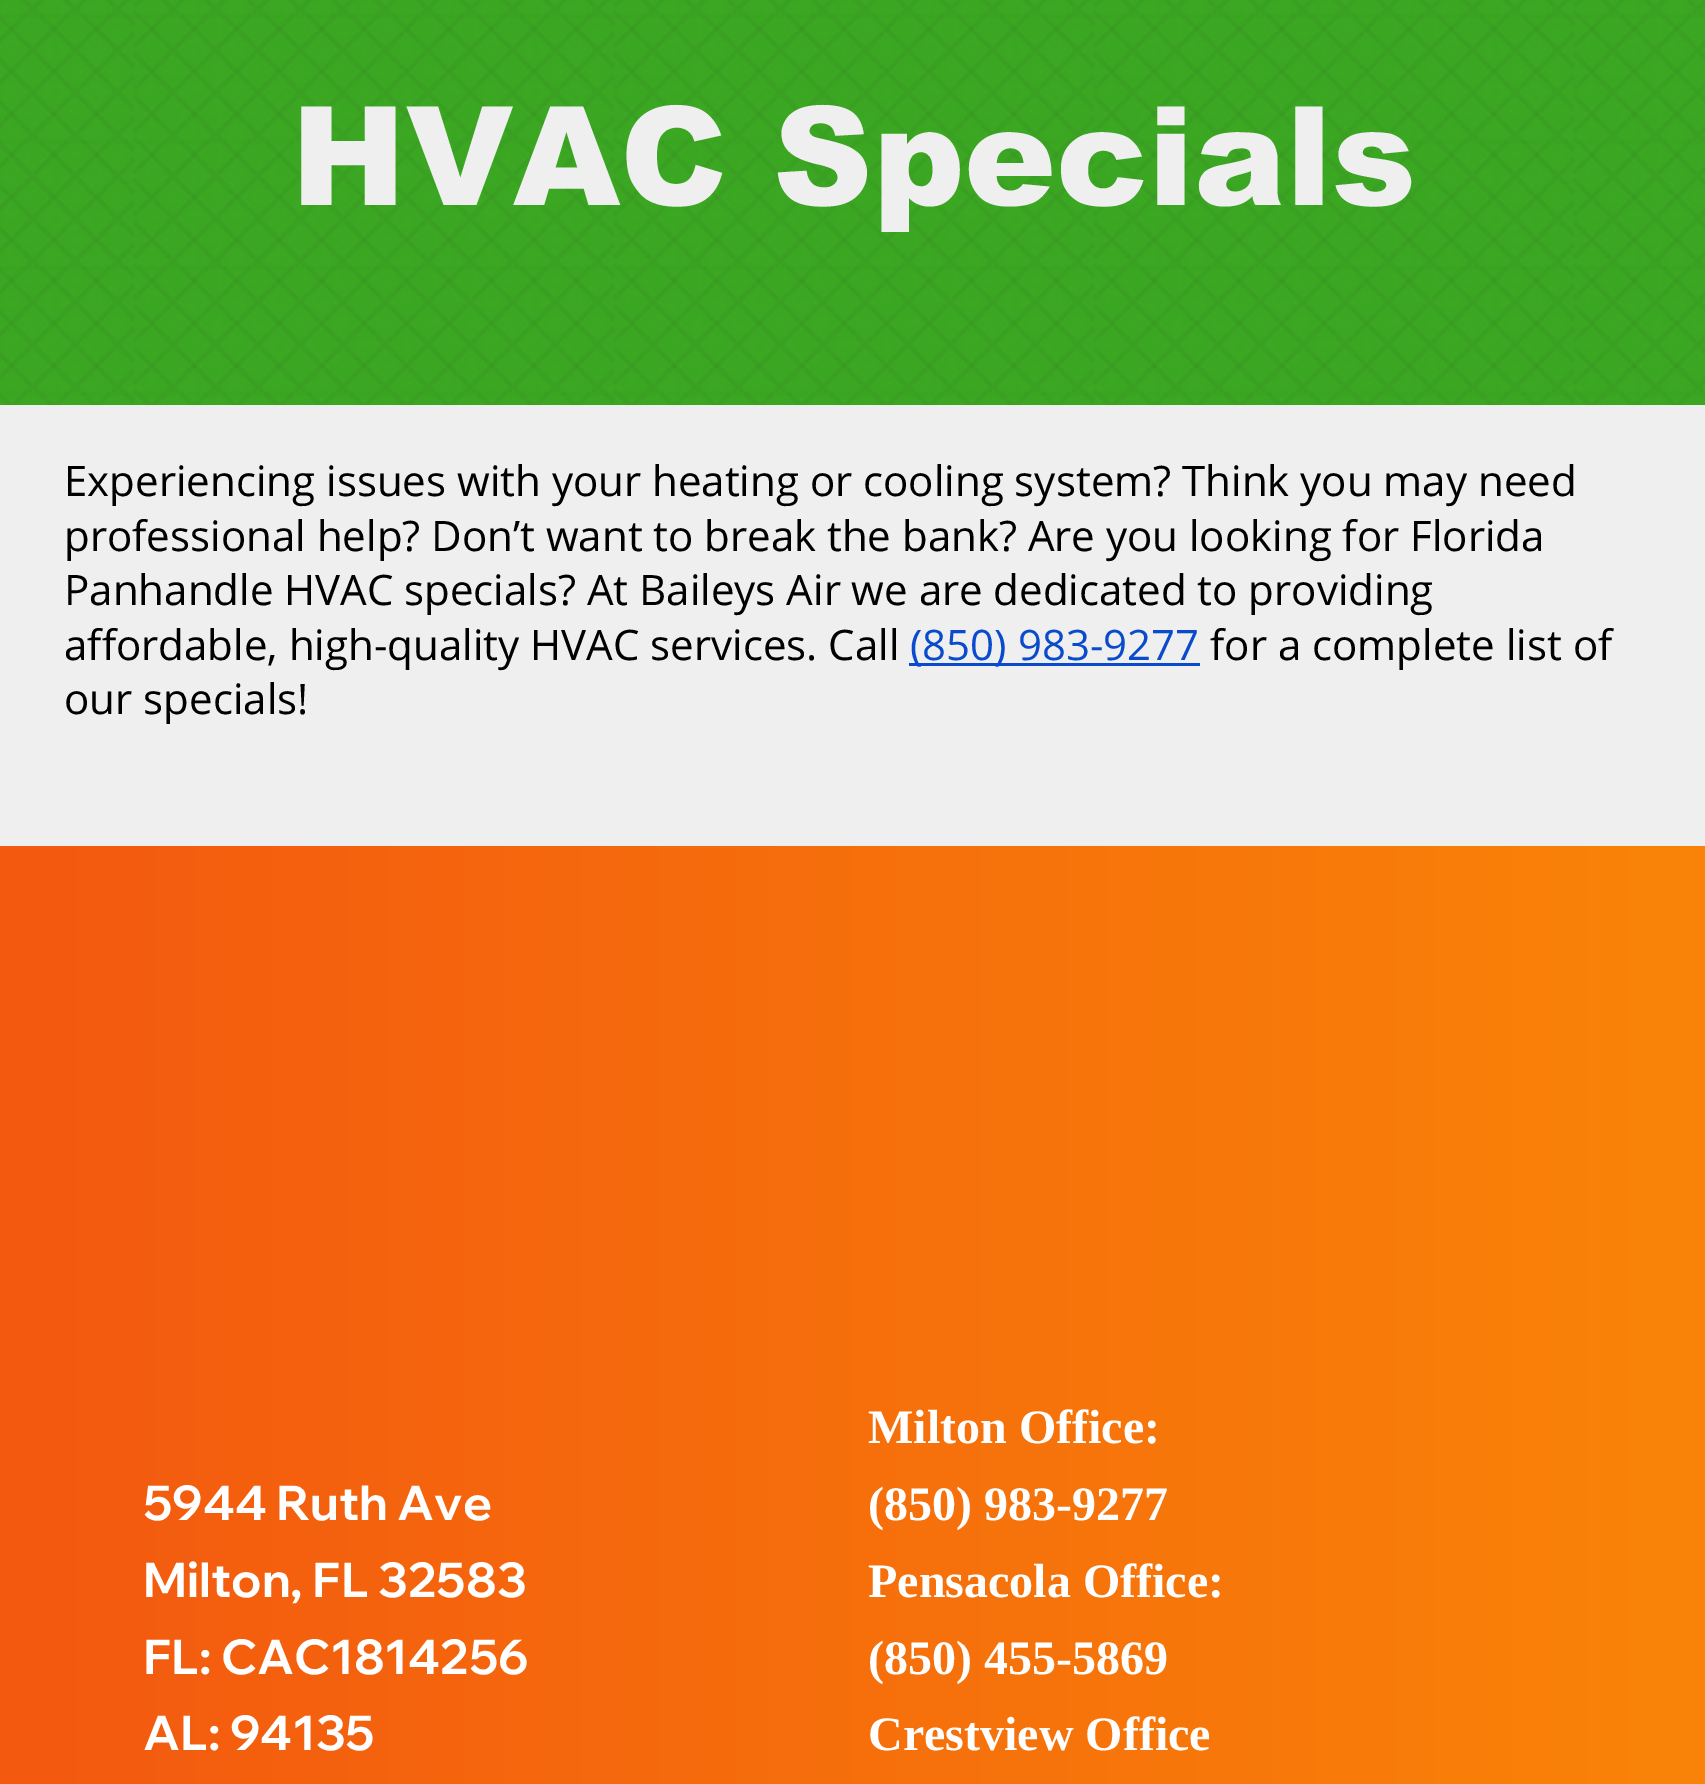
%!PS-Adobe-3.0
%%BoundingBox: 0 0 1705 1784
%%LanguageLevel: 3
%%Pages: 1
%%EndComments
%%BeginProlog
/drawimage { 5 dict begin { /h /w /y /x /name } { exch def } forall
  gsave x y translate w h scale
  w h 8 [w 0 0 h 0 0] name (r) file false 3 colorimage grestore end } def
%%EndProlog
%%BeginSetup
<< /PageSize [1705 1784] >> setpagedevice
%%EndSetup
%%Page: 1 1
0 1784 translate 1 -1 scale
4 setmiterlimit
0.937 setgray
0 0 1705 1784 rectfill
(images/1.raw) 0 0 1705 405 drawimage
0.035 0.294 0.8 setrgbcolor
909 663 291 3 rectfill
gsave newpath 0 846 moveto 1705 846 lineto 1705 1784 lineto 0 1784 lineto closepath clip newpath
<< /ShadingType 2 /ColorSpace /DeviceRGB /Coords [0 1577 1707 1577] /Extend [true true] /Function << /FunctionType 2 /Domain [0 1] /C0 [0.953 0.349 0.063] /C1 [0.98 0.518 0.031] /N 1 >> >> shfill grestore
/arial-Black [137.75 0 0 -137.75 0 0] selectfont
0.937 setgray
291 205 moveto (HVAC Specials) show
/OpenSans-Regular [42 0 0 -42 0 0] selectfont
0 setgray
64 496 moveto -0.1 0 32 (Experiencing issues with your heating or cooling system? Think you may need) widthshow
64 551 moveto -0.1 0 32 (professional help? Don’t want to break the bank? Are you looking for Florida) widthshow
64 605 moveto -0.1 0 32 (Panhandle HVAC specials? At Baileys Air we are dedicated to providing) widthshow
64 660 moveto (affordable, high-quality HVAC services. Call) show
0.035 0.294 0.8 setrgbcolor
910 660 moveto (\(850\) 983-9277) show
0 setgray
1210 660 moveto (for a complete list of) show
64 714 moveto (our specials!) show
/WixMadeforDisplay-Bold [48 0 0 -48 0 0] selectfont
1 setgray
143 1520 moveto (5944 Ruth Ave) show
143 1597 moveto (Milton, FL 32583) show
143 1674 moveto (FL: CAC1814256) show
143 1750 moveto (AL: 94135) show
/LiberationSerif-Bold [48 0 0 -48 0 0] selectfont
868 1443 moveto (Milton Office:) show
868 1520 moveto (\(850\) 983-9277) show
868 1597 moveto (Pensacola Office:) show
868 1674 moveto (\(850\) 455-5869) show
868 1750 moveto (Crestview Office) show
showpage
%%EOF
